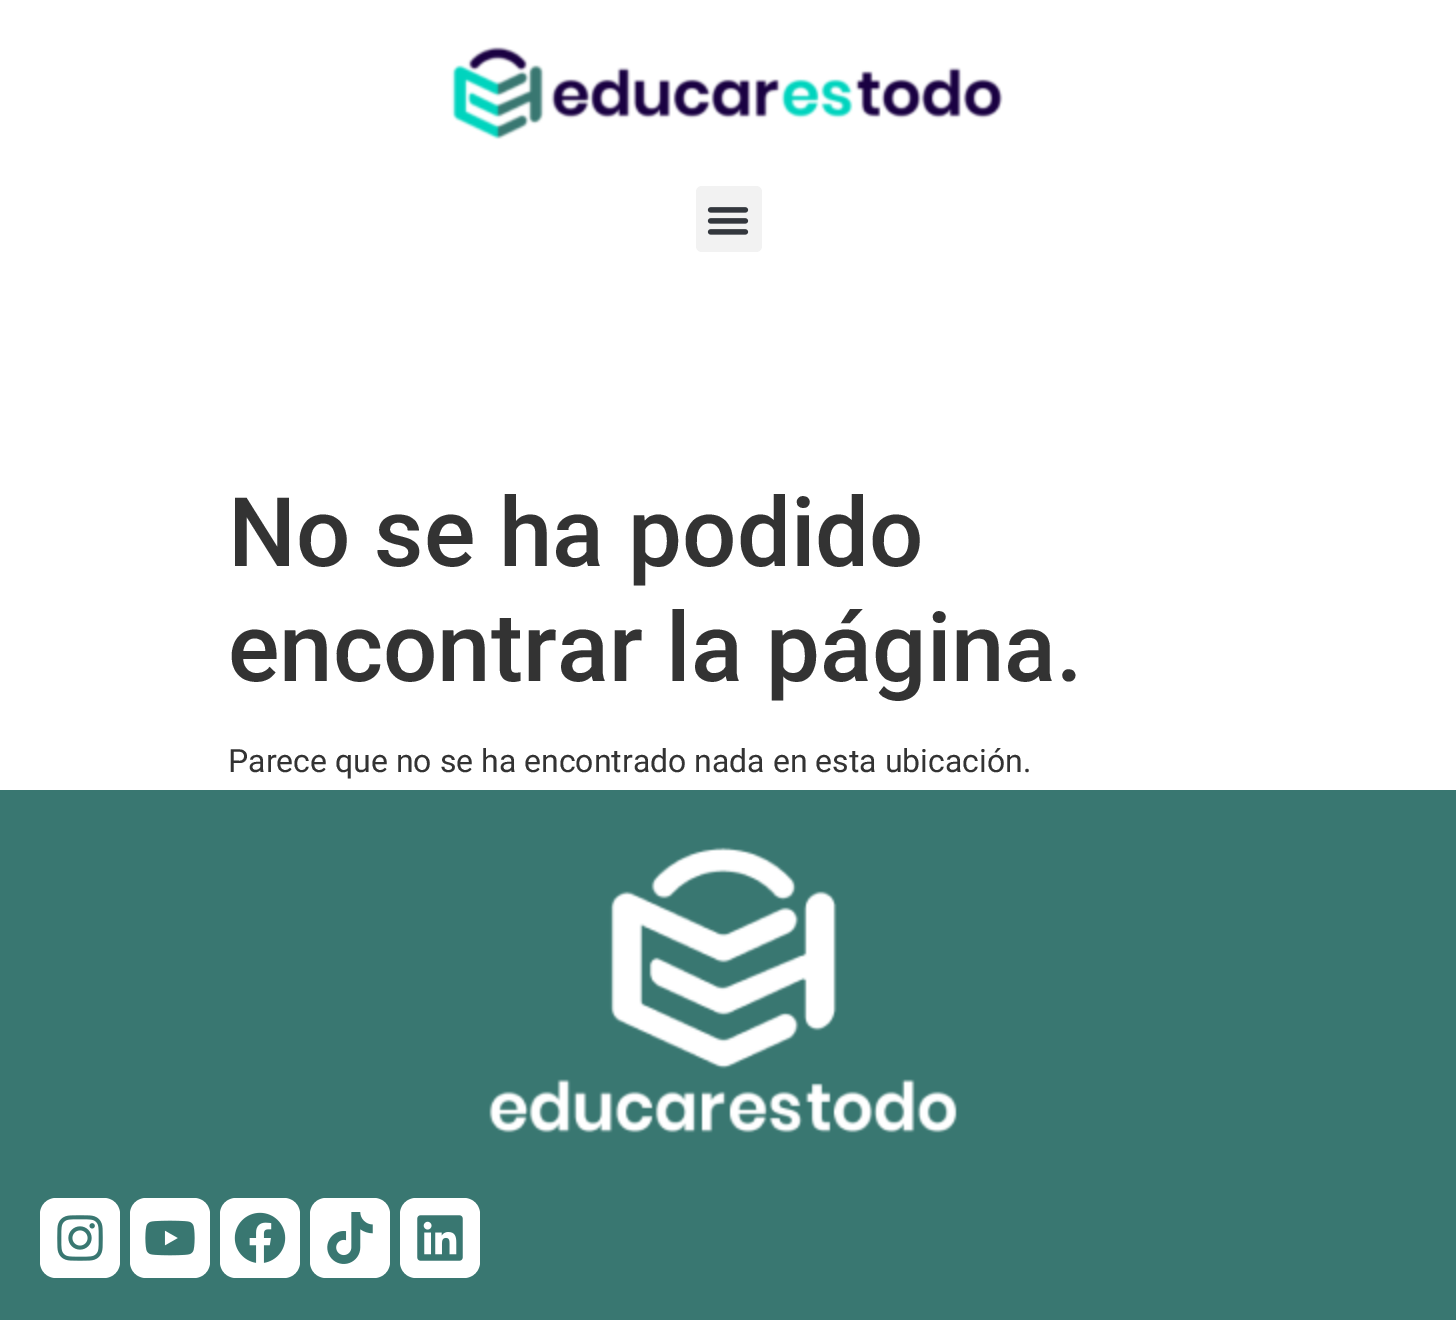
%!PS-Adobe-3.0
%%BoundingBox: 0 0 1456 1320
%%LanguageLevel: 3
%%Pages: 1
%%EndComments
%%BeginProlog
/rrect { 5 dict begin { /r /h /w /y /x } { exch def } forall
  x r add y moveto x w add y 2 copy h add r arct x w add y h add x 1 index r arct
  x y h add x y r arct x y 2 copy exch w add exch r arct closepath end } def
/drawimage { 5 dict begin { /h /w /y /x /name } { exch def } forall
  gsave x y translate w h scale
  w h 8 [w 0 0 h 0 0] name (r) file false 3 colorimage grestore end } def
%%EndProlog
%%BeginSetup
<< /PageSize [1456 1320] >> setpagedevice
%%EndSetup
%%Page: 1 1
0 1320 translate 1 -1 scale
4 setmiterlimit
1 setgray
0 0 1456 1320 rectfill
(images/1.raw) 451 46 552 94 drawimage
0.949 setgray
696 186 66 66 6 rrect fill
(images/2.raw) 707 207 42 28 drawimage
0.224 0.467 0.443 setrgbcolor
0 790 1456 530 rectfill
(images/3.raw) 489 847 468 286 drawimage
1 setgray
40 1198 80 80 16 rrect fill
(images/4.raw) 57 1215 46 46 drawimage
130 1198 80 80 16 rrect fill
(images/5.raw) 145 1220 50 36 drawimage
220 1198 80 80 16 rrect fill
(images/6.raw) 234 1212 52 51 drawimage
310 1198 80 80 16 rrect fill
(images/7.raw) 327 1212 46 52 drawimage
400 1198 80 80 16 rrect fill
(images/8.raw) 417 1215 46 46 drawimage
/Roboto-Medium [96 0 0 -96 0 0] selectfont
0.2 setgray
228 566 moveto (No se ha podido) show
228 681 moveto (encontrar la página.) show
/Roboto-Regular [32 0 0 -32 0 0] selectfont
228 772 moveto (Parece que no se ha encontrado nada en esta ubicación.) show
showpage
%%EOF
